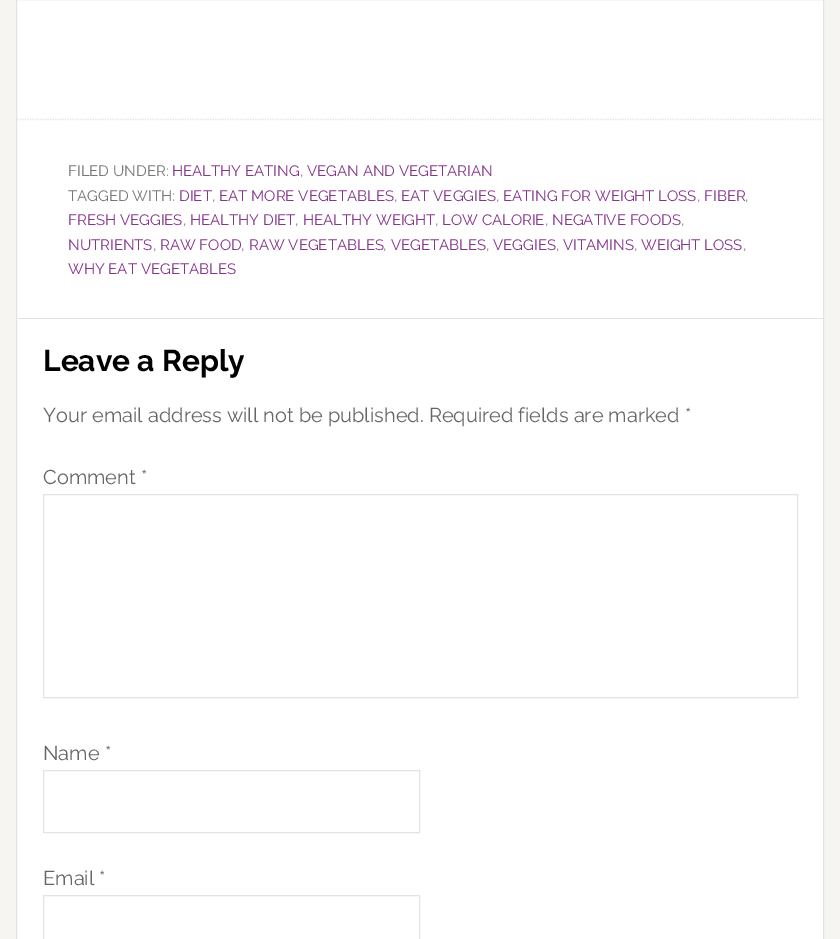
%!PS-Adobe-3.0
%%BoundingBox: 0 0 840 939
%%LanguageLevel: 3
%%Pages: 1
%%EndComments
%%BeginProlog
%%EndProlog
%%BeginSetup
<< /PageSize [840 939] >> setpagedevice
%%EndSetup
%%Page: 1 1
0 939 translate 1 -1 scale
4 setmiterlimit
0.965 0.961 0.949 setrgbcolor
0 0 840 939 rectfill
1 setgray
newpath 16.5 -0.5 moveto 823.5 -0.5 lineto 823.5 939.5 lineto 16.5 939.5 lineto closepath gsave fill grestore
0.89 setgray
stroke
18 318 805 1 rectfill
1.2 setlinewidth
[1.25 1.25] 0 setdash
newpath 17.5 119.5 moveto 822.5 119.5 lineto stroke
1 setlinewidth
[] 0 setdash
43.5 494.5 754 203 rectstroke
43.5 770.5 376 62 rectstroke
43.5 895.5 376 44 rectstroke
/Raleway-Regular [15 0 0 -15 0 0] selectfont
0.463 setgray
68 176 moveto (FILED UNDER:) show
0.525 0.204 0.545 setrgbcolor
172 176 moveto (HEALTHY EATING) show
0.463 setgray
300 176 moveto (,) show
0.525 0.204 0.545 setrgbcolor
307 176 moveto (VEGAN AND VEGETARIAN) show
0.463 setgray
68 201 moveto (TAGGED WITH:) show
0.525 0.204 0.545 setrgbcolor
179 201 moveto (DIET) show
0.463 setgray
212 201 moveto (,) show
0.525 0.204 0.545 setrgbcolor
219 201 moveto (EAT MORE VEGETABLES) show
0.463 setgray
394 201 moveto (,) show
0.525 0.204 0.545 setrgbcolor
401 201 moveto (EAT VEGGIES) show
0.463 setgray
496 201 moveto (,) show
0.525 0.204 0.545 setrgbcolor
503 201 moveto (EATING FOR WEIGHT LOSS) show
0.463 setgray
697 201 moveto (,) show
0.525 0.204 0.545 setrgbcolor
704 201 moveto (FIBER) show
0.463 setgray
745 201 moveto (,) show
0.525 0.204 0.545 setrgbcolor
68 225 moveto (FRESH VEGGIES) show
0.463 setgray
183 225 moveto (,) show
0.525 0.204 0.545 setrgbcolor
190 225 moveto (HEALTHY DIET) show
0.463 setgray
295 225 moveto (,) show
0.525 0.204 0.545 setrgbcolor
303 225 moveto (HEALTHY WEIGHT) show
0.463 setgray
435 225 moveto (,) show
0.525 0.204 0.545 setrgbcolor
442 225 moveto (LOW CALORIE) show
0.463 setgray
545 225 moveto (,) show
0.525 0.204 0.545 setrgbcolor
552 225 moveto (NEGATIVE FOODS) show
0.463 setgray
681 225 moveto (,) show
0.525 0.204 0.545 setrgbcolor
68 250 moveto (NUTRIENTS) show
0.463 setgray
153 250 moveto (,) show
0.525 0.204 0.545 setrgbcolor
160 250 moveto (RAW FOOD) show
0.463 setgray
241 250 moveto (,) show
0.525 0.204 0.545 setrgbcolor
249 250 moveto (RAW VEGETABLES) show
0.463 setgray
383 250 moveto (,) show
0.525 0.204 0.545 setrgbcolor
391 250 moveto (VEGETABLES) show
0.463 setgray
486 250 moveto (,) show
0.525 0.204 0.545 setrgbcolor
493 250 moveto (VEGGIES) show
0.463 setgray
556 250 moveto (,) show
0.525 0.204 0.545 setrgbcolor
563 250 moveto (VITAMINS) show
0.463 setgray
634 250 moveto (,) show
0.525 0.204 0.545 setrgbcolor
641 250 moveto (WEIGHT LOSS) show
0.463 setgray
743 250 moveto (,) show
0.525 0.204 0.545 setrgbcolor
68 274 moveto (WHY EAT VEGETABLES) show
/Raleway-Bold [30 0 0 -30 0 0] selectfont
0 setgray
43 371 moveto (Leave a Reply) show
/Raleway-Regular [20 0 0 -20 0 0] selectfont
0.4 setgray
43 422 moveto (Your email address will not be published. Required fields are marked *) show
43 484 moveto (Comment *) show
43 760 moveto (Name *) show
43 885 moveto (Email *) show
showpage
%%EOF
